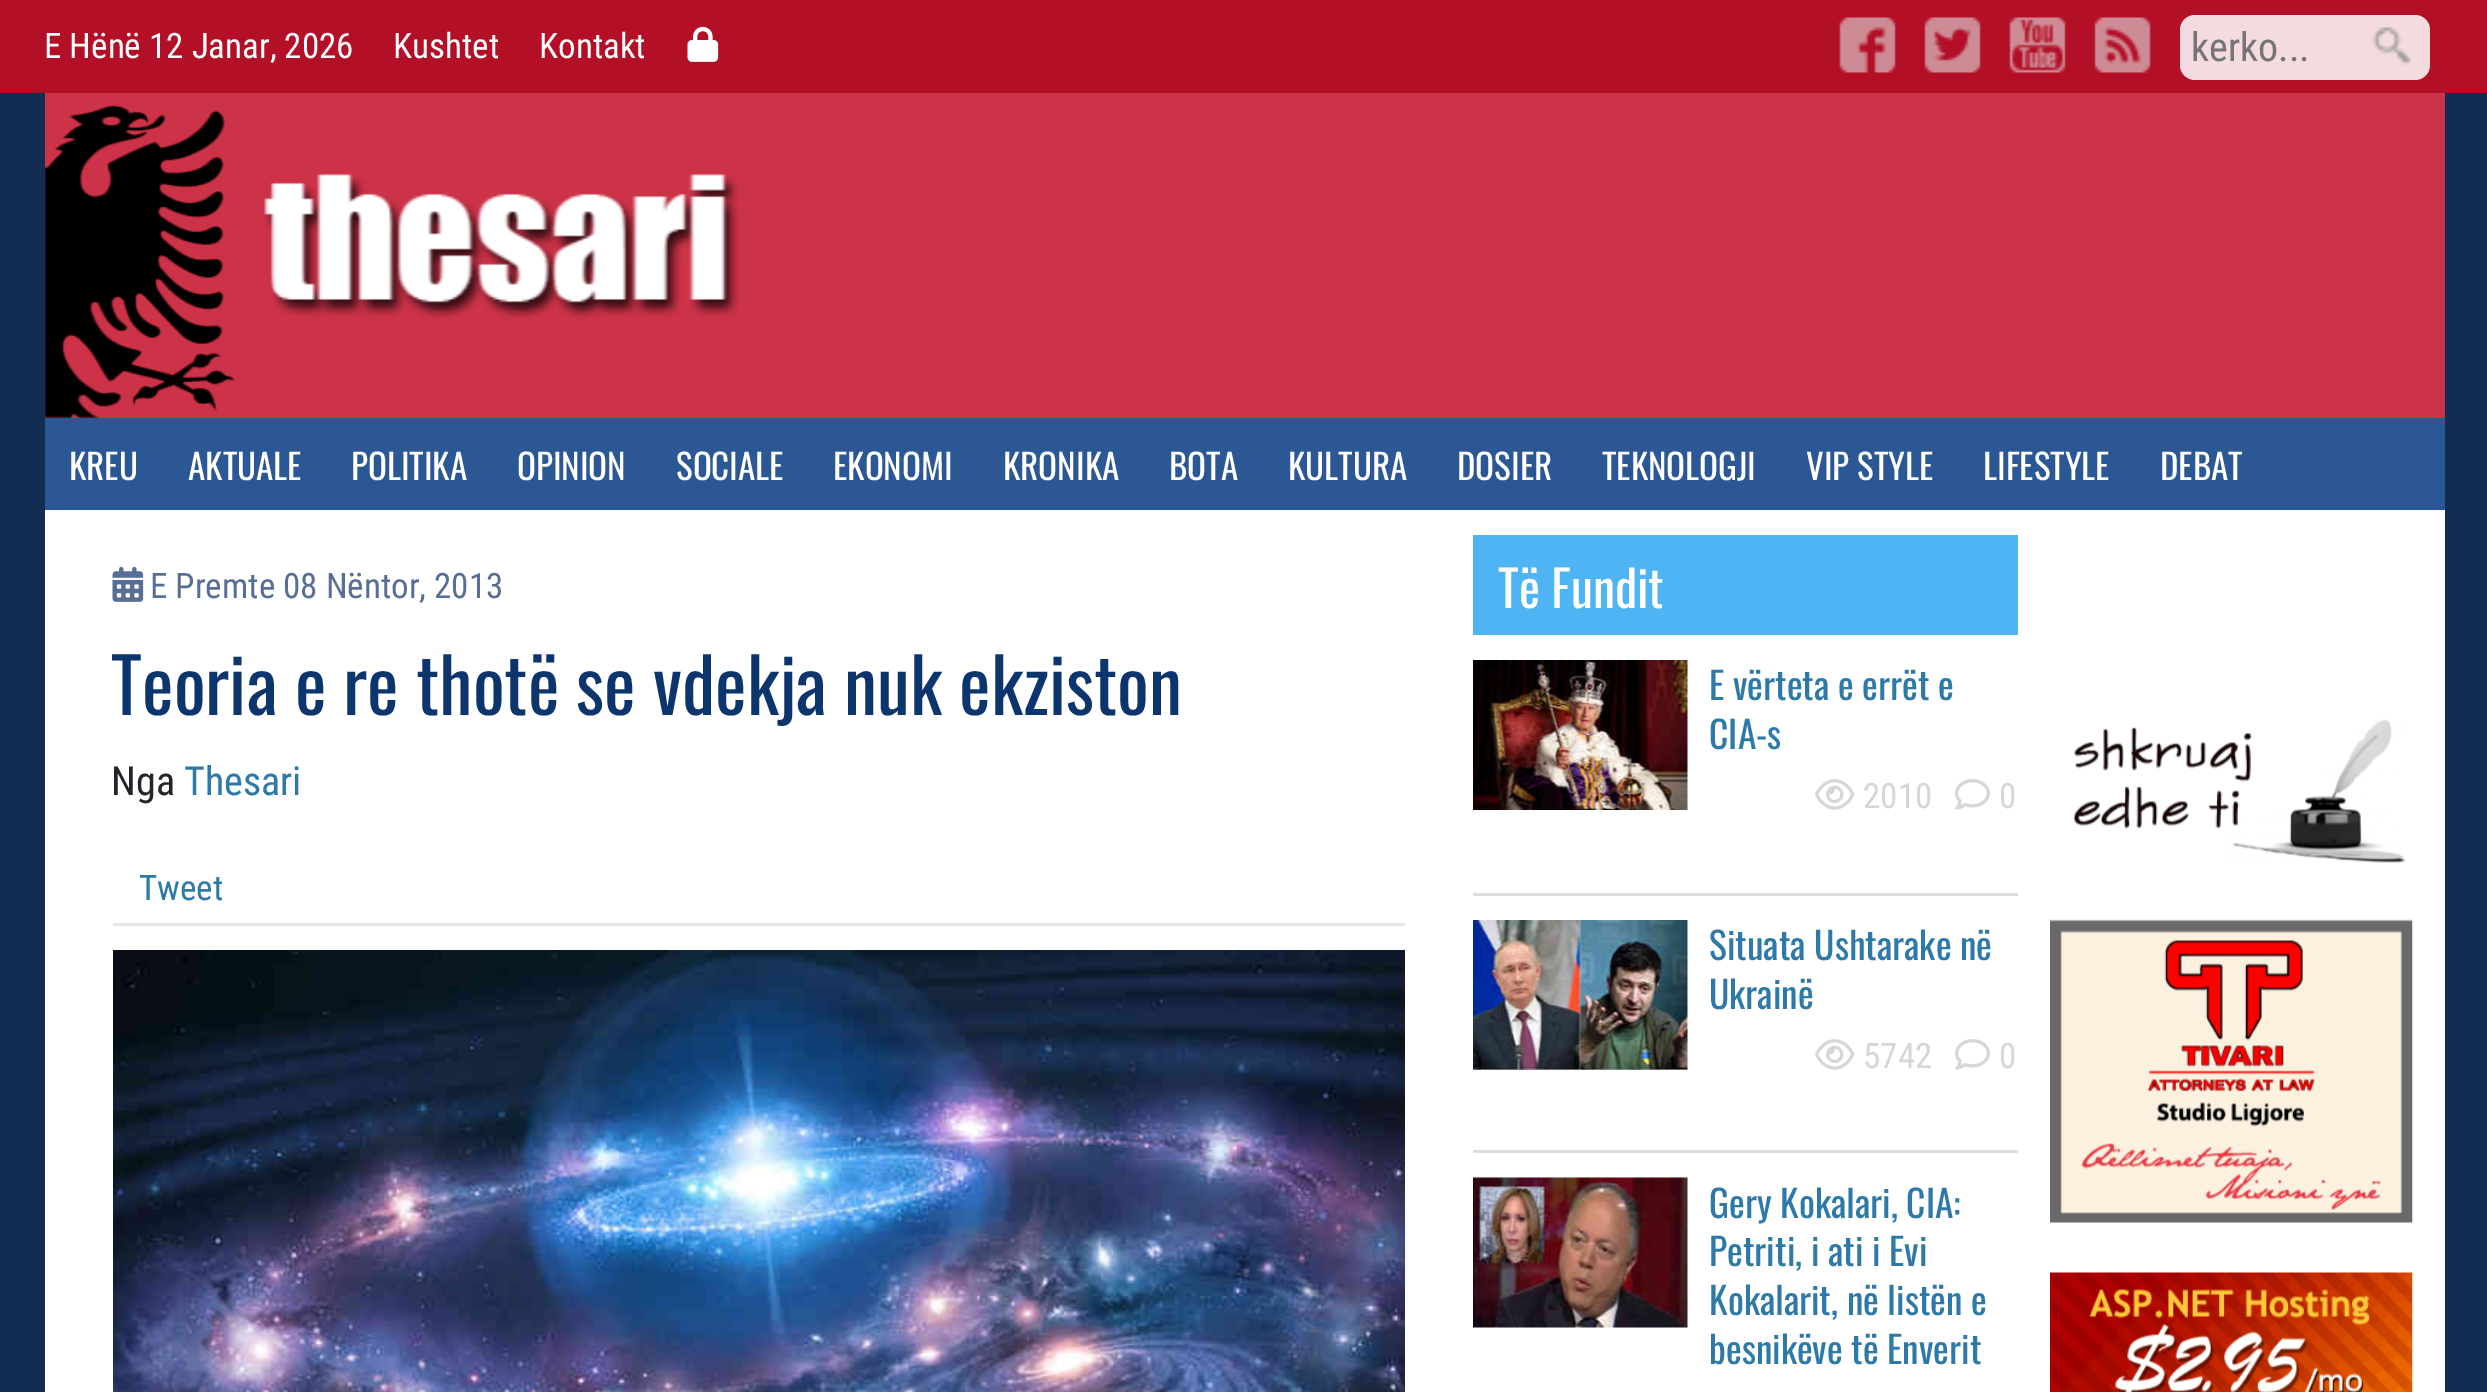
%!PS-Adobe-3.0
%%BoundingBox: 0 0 2487 1392
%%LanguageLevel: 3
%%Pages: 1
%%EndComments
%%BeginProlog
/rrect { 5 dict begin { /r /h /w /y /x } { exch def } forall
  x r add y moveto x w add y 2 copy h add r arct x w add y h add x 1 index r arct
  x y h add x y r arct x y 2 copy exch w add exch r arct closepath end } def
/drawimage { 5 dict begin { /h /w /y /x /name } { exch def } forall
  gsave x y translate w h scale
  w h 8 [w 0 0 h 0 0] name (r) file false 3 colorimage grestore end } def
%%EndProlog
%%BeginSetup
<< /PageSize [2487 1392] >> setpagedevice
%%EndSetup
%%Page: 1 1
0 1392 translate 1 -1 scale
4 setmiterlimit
0.075 0.176 0.322 setrgbcolor
0 0 2487 1392 rectfill
0.702 0.059 0.153 setrgbcolor
0 0 2487 93 rectfill
(images/1.raw) 687 26 32 36 drawimage
(images/2.raw) 1839 17 57 56 drawimage
(images/3.raw) 1924 17 57 56 drawimage
(images/4.raw) 2009 17 57 56 drawimage
(images/5.raw) 2094 17 57 56 drawimage
0.957 0.859 0.875 setrgbcolor
2180 15 250 65 15 rrect fill
(images/6.raw) 2372 27 39 38 drawimage
1 setgray
45 510 2400 882 rectfill
0.8 0.196 0.282 setrgbcolor
45 93 2400 325 rectfill
(images/7.raw) 44 105 191 313 drawimage
(images/8.raw) 264 174 475 144 drawimage
0.169 0.341 0.58 setrgbcolor
45 418 2400 92 rectfill
(images/9.raw) 112 566 32 36 drawimage
0.902 setgray
113 923 1292 3 rectfill
(images/10.raw) 113 950 1292 442 drawimage
0.31 0.706 0.953 setrgbcolor
1473 535 545 100 rectfill
(images/11.raw) 1473 660 215 150 drawimage
(images/12.raw) 1815 779 40 31 drawimage
(images/13.raw) 1955 779 35 31 drawimage
0.867 setgray
1473 893 545 3 rectfill
(images/14.raw) 1473 920 215 150 drawimage
(images/12.raw) 1815 1039 40 31 drawimage
(images/13.raw) 1955 1039 35 31 drawimage
1473 1150 545 3 rectfill
(images/15.raw) 1473 1177 215 151 drawimage
(images/16.raw) 2073 719 333 144 drawimage
(images/17.raw) 2050 919 363 304 drawimage
(images/18.raw) 2050 1272 363 120 drawimage
/RobotoCondensed-Regular [35 0 0 -35 0 0] selectfont
1 setgray
44 58 moveto (E Hënë 12 Janar, 2026) show
393 58 moveto (Kushtet) show
539 58 moveto (Kontakt) show
/RobotoCondensed-Regular [40 0 0 -40 0 0] selectfont
0.459 setgray
2191 61 moveto (kerko...) show
/Oswald-Regular [35 0 0 -35 0 0] selectfont
1 setgray
69 480 moveto (KREU) show
188 480 moveto (AKTUALE) show
351 480 moveto (POLITIKA) show
517 480 moveto (OPINION) show
676 480 moveto (SOCIALE) show
833 480 moveto (EKONOMI) show
1003 480 moveto (KRONIKA) show
1169 480 moveto (BOTA) show
1288 480 moveto (KULTURA) show
1457 480 moveto (DOSIER) show
1602 480 moveto (TEKNOLOGJI) show
1806 480 moveto (VIP STYLE) show
1983 480 moveto (LIFESTYLE) show
2160 480 moveto (DEBAT) show
/RobotoCondensed-Regular [35 0 0 -35 0 0] selectfont
0.345 0.431 0.588 setrgbcolor
150 598 moveto (E Premte 08 Nëntor, 2013) show
/Oswald-Regular [75 0 0 -75 0 0] selectfont
0.051 0.208 0.427 setrgbcolor
111 715 moveto (Teoria e re thotë se vdekja nuk ekziston) show
/RobotoCondensed-Regular [40 0 0 -40 0 0] selectfont
0.129 0.145 0.161 setrgbcolor
111 795 moveto (Nga) show
0.176 0.475 0.655 setrgbcolor
184 795 moveto (Thesari) show
/RobotoCondensed-Regular [35 0 0 -35 0 0] selectfont
139 900 moveto (Tweet) show
/Oswald-Regular [50 0 0 -50 0 0] selectfont
1 setgray
1498 608 moveto (Të Fundit) show
/Oswald-Regular [37.5 0 0 -37.5 0 0] selectfont
0.176 0.475 0.655 setrgbcolor
1709 700 moveto (E vërteta e errët e) show
1709 749 moveto (CIA-s) show
/RobotoCondensed-Regular [35 0 0 -35 0 0] selectfont
0.839 setgray
1863 808 moveto (2010) show
1999 808 moveto (0) show
/Oswald-Regular [37.5 0 0 -37.5 0 0] selectfont
0.176 0.475 0.655 setrgbcolor
1709 960 moveto (Situata Ushtarake në) show
1709 1009 moveto (Ukrainë) show
/RobotoCondensed-Regular [35 0 0 -35 0 0] selectfont
0.839 setgray
1863 1068 moveto (5742) show
1999 1068 moveto (0) show
/Oswald-Regular [37.5 0 0 -37.5 0 0] selectfont
0.176 0.475 0.655 setrgbcolor
1709 1218 moveto (Gery Kokalari, CIA:) show
1709 1266 moveto (Petriti, i ati i Evi) show
1709 1315 moveto (Kokalarit, në listën e) show
1709 1364 moveto (besnikëve të Enverit) show
showpage
%%EOF
